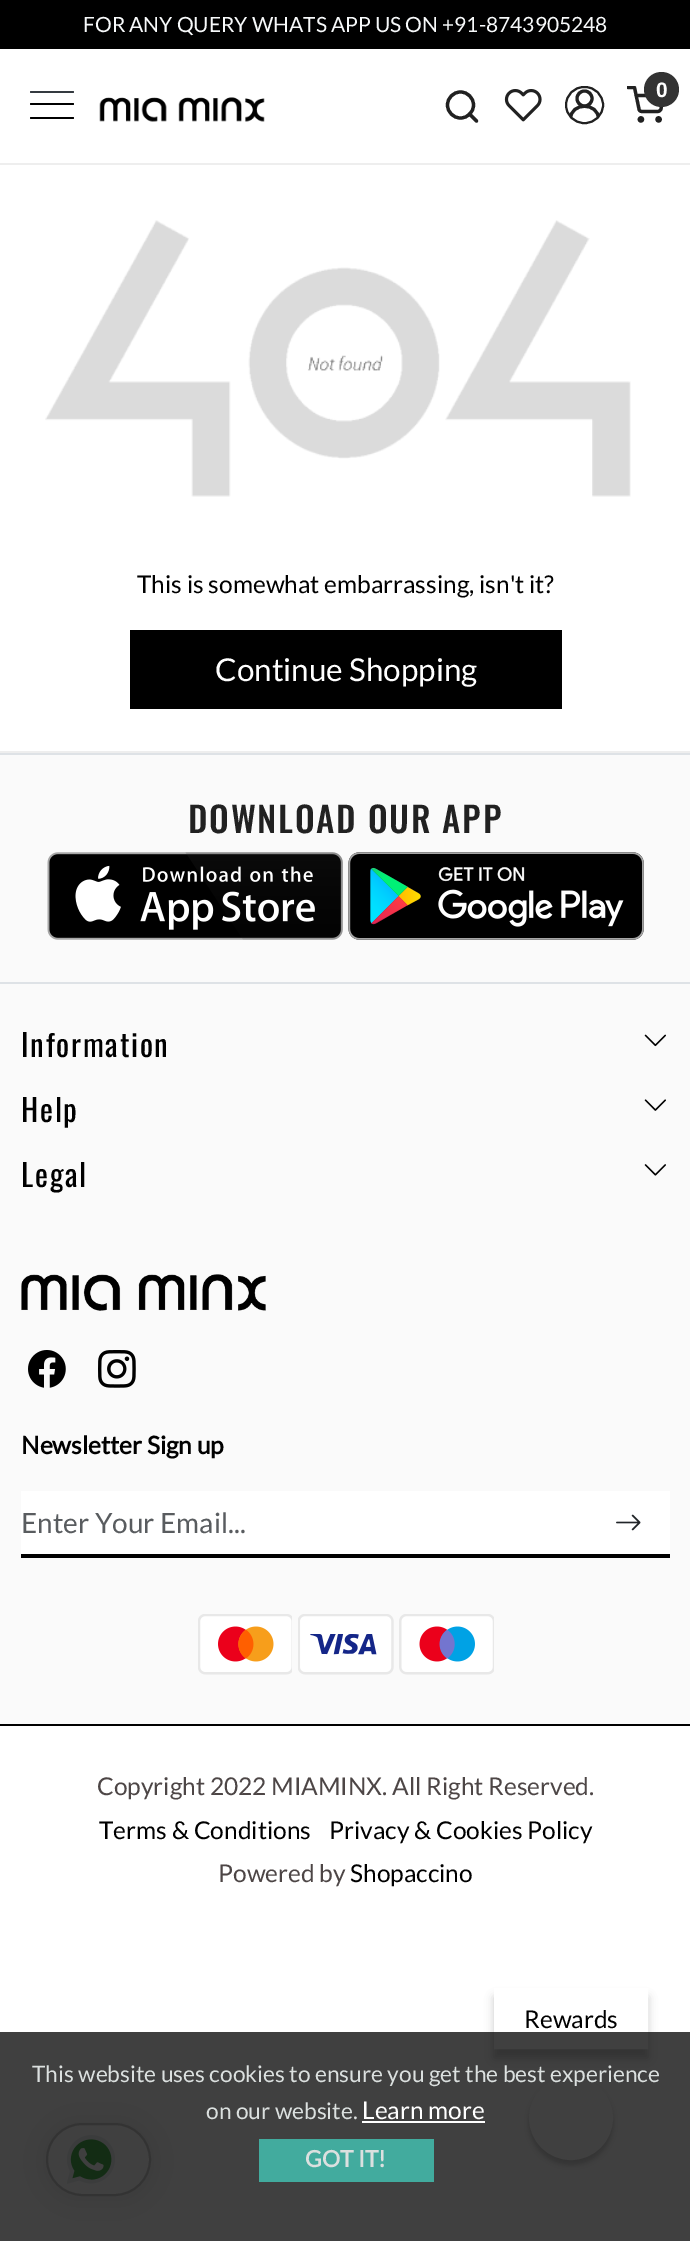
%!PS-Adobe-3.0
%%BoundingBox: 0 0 690 2241
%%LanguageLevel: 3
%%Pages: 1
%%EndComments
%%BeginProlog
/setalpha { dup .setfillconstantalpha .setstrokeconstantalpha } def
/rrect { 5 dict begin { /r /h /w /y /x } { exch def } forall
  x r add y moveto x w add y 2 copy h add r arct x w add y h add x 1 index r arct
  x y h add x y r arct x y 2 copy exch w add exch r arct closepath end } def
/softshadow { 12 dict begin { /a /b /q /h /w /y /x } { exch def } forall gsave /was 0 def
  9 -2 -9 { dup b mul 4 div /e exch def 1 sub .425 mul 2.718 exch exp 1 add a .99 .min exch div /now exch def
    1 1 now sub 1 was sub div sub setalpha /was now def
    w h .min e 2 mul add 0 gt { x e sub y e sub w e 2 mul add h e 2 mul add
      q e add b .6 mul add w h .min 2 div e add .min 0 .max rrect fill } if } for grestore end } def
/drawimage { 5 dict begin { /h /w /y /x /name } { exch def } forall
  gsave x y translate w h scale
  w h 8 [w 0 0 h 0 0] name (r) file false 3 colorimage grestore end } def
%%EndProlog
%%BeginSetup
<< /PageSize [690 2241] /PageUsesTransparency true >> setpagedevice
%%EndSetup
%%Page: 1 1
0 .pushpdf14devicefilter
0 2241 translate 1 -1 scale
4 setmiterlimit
1 setgray
0 0 690 2241 rectfill
0 setgray
0 0 690 49 rectfill
0.933 setgray
0 163 690 2 rectfill
0 setgray
30 117 44 2 1 rrect fill
30 103 44 2 1 rrect fill
0.204 0.227 0.251 setrgbcolor
30 91 44 2 1 rrect fill
(images/1.raw) 99 97 166 25 drawimage
0.129 setgray
3.2 setlinewidth
newpath 460.5 105 13 0 360 arc closepath stroke
1 setlinecap
1 setlinejoin
newpath 476.5 121 moveto 469.5 114 lineto stroke
(images/2.raw) 504 89 38 33 drawimage
2 setlinewidth
0 setlinecap
0 setlinejoin
566 87 37 36 18 rrect stroke
gsave
567 88 35 35 17.5 rrect clip newpath
3.1 setlinewidth
2 setlinecap
newpath 570.5 119 moveto 570.5 102 598.5 102 598.5 119 curveto stroke
grestore
3.1 setlinewidth
newpath 584.5 98.5 7.5 0 360 arc closepath stroke
gsave
627 86 38 38 rectclip
3.2 setlinewidth
1 setlinecap
1 setlinejoin
newpath 628 87.5 moveto 634.5 87.5 lineto 639 109 lineto 639 110.5 640.5 111.5 642 111.5 curveto 657.5 111.5 lineto 659 111.5 660.5 110.5 661 109 curveto 663.5 95.5 lineto 636 95.5 lineto stroke
grestore
0.2 setgray
newpath 661.5 89.5 17.5 0 360 arc closepath fill
0.129 setgray
3.2 setlinewidth
newpath 640.9 119.4 1.6 0 360 arc closepath stroke
newpath 658.6 119.4 1.6 0 360 arc closepath stroke
(images/3.raw) 45 220 586 277 drawimage
0 setgray
130 630 432 79 rectfill
0.98 setgray
0 755 690 969 rectfill
0.933 setgray
0 751 690 2 rectfill
0.871 0.886 0.902 setrgbcolor
0 753 690 2 rectfill
0 982 690 2 rectfill
(images/4.raw) 47 852 296 88 drawimage
(images/5.raw) 348 852 296 88 drawimage
(images/6.raw) 644 1034 22 13 drawimage
(images/7.raw) 644 1099 22 12 drawimage
(images/8.raw) 644 1164 22 12 drawimage
(images/9.raw) 21 1274 245 37 drawimage
(images/10.raw) 28 1350 38 38 drawimage
(images/11.raw) 98 1350 38 38 drawimage
1 setgray
21 1491 649 63 rectfill
0 setgray
21 1554 649 4 rectfill
(images/12.raw) 616 1514 25 17 drawimage
(images/13.raw) 198 1614 94 61 drawimage
(images/14.raw) 298 1614 96 61 drawimage
(images/15.raw) 399 1614 95 61 drawimage
gsave
newpath 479 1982 moveto 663 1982 lineto 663 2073 lineto 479 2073 lineto closepath 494 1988 moveto 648 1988 lineto 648 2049 lineto 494 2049 lineto closepath eoclip newpath
494 1997 154 61 0 4.5 0.2 softshadow
grestore
1 setgray
2 setlinewidth
495 1989 152 59 rectstroke
gsave
newpath 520 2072 moveto 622 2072 lineto 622 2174 lineto 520 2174 lineto closepath 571 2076 moveto 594 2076 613 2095 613 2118 curveto 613 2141 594 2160 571 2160 curveto 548 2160 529 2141 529 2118 curveto 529 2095 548 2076 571 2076 curveto closepath eoclip newpath
0.051 setgray
529 2081 84 84 42 2.5 0.2 softshadow
grestore
0.48 setalpha
newpath 571 2118 41 0 360 arc closepath fill
1 setalpha
newpath 571 2118 41 0 360 arc closepath stroke
0 setgray
0 1724 690 2 rectfill
0.125 0.129 0.141 setrgbcolor
46 2125 105 73 36.5 13 0.1 softshadow
1 setgray
47 2124 103 71 35.5 rrect gsave fill grestore
0.8 setgray
stroke
(images/16.raw) 67 2135 48 49 drawimage
0.75 setalpha
0 setgray
0 2032 690 209 rectfill
1 setalpha
1 setgray
362 2121 123 2 rectfill
0.259 0.671 0.62 setrgbcolor
259 2139 175 43 rectfill
/Lato-Regular [21 0 0 -21 0 0] selectfont
0.969 0.976 0.98 setrgbcolor
83 32 moveto (FOR ANY QUERY WHATS APP US ON +91-8743905248) show
/LiberationSans-Bold [21 0 0 -21 0 0] selectfont
1 setgray
656 97 moveto (0) show
/Lato-Regular [24.5 0 0 -24.5 0 0] selectfont
0 setgray
137 593 moveto (This is somewhat embarrassing, isn't it?) show
/Lato-Regular [31.5 0 0 -31.5 0 0] selectfont
1 setgray
215 681 moveto (Continue Shopping) show
/Oswald-Medium [35 0 0 -35 0 0] selectfont
0.129 setgray
188 833 moveto 1.75 0 (DOWNLOAD OUR APP) ashow
/Oswald-Regular [30.75 0 0 -30.75 0 0] selectfont
0 setgray
21 1057 moveto 1.75 0 (Information) ashow
21 1122 moveto 1.75 0 (Help) ashow
21 1187 moveto 1.75 0 (Legal) ashow
/Lato-Bold [24.5 0 0 -24.5 0 0] selectfont
21 1454 moveto (Newsletter Sign up) show
/Lato-Regular [28 0 0 -28 0 0] selectfont
0.349 0.361 0.373 setrgbcolor
21 1533 moveto (Enter Your Email...) show
/Lato-Regular [24.5 0 0 -24.5 0 0] selectfont
0 setgray
524 2028 moveto (Rewards) show
0.302 0.275 0.275 setrgbcolor
97 1795 moveto (Copyright 2022 MIAMINX. All Right Reserved.) show
0 setgray
99 1839 moveto (Terms & Conditions) show
329 1839 moveto (Privacy & Cookies Policy) show
0.302 0.275 0.275 setrgbcolor
218 1882 moveto (Powered by) show
0 setgray
350 1882 moveto (Shopaccino) show
/Lato-Regular [22.75 0 0 -22.75 0 0] selectfont
0.859 0.878 0.875 setrgbcolor
32 2082 moveto (This website uses cookies to ensure you get the best experience) show
206 2119 moveto (on our website.) show
/Lato-Regular [24.5 0 0 -24.5 0 0] selectfont
1 setgray
362 2119 moveto (Learn more) show
/Lato-Bold [22.75 0 0 -22.75 0 0] selectfont
0.859 0.878 0.875 setrgbcolor
305 2167 moveto (GOT IT!) show
.poppdf14devicefilter showpage
%%EOF
